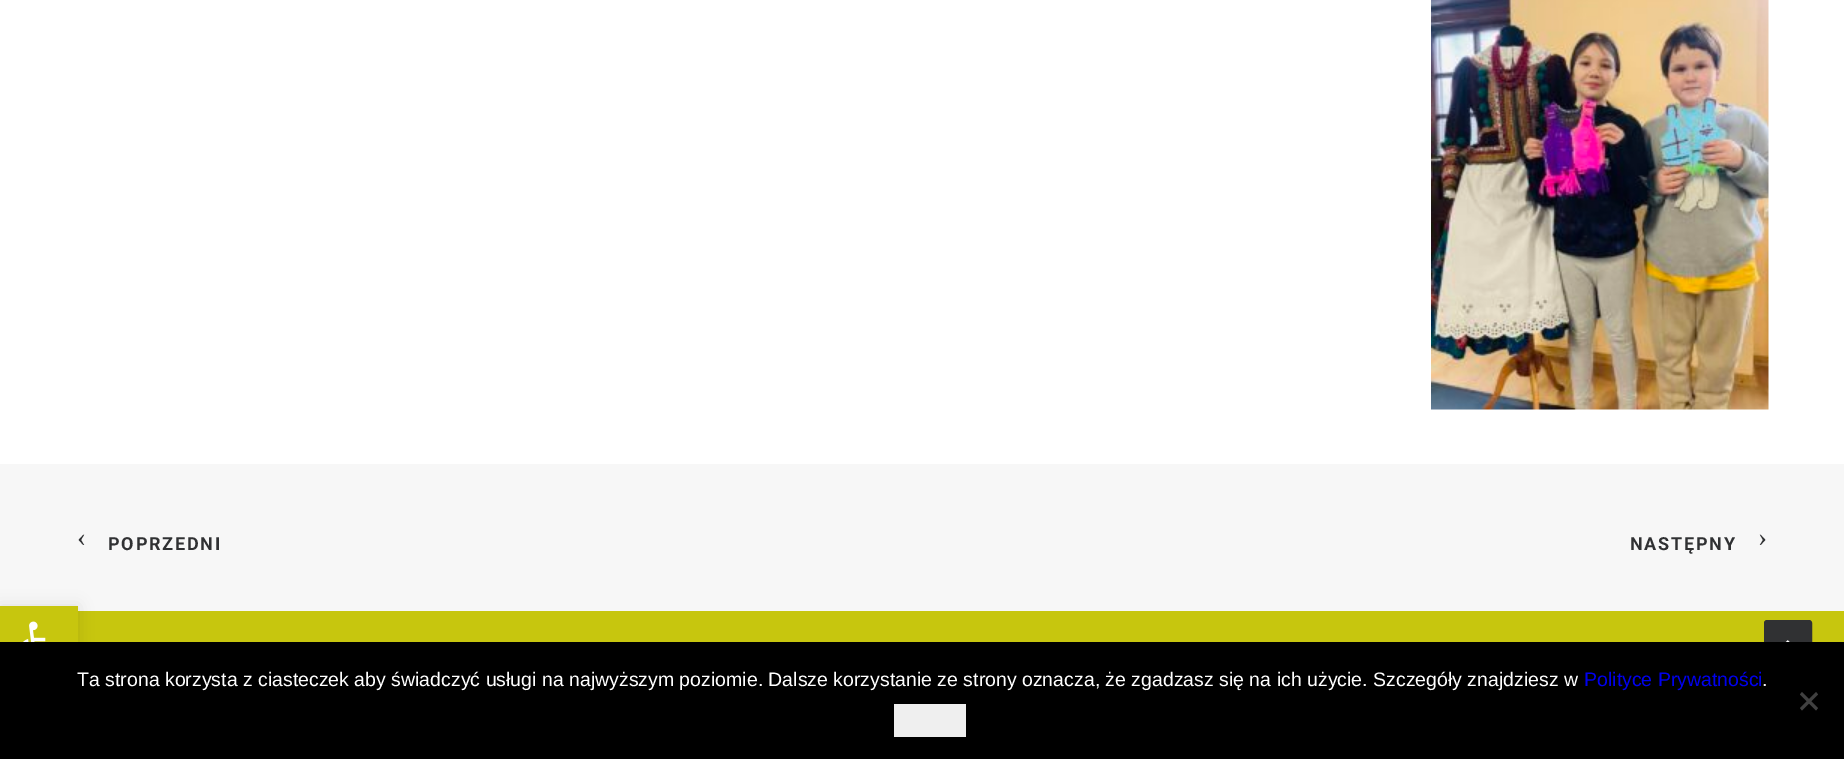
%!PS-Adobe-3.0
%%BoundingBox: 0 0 1844 759
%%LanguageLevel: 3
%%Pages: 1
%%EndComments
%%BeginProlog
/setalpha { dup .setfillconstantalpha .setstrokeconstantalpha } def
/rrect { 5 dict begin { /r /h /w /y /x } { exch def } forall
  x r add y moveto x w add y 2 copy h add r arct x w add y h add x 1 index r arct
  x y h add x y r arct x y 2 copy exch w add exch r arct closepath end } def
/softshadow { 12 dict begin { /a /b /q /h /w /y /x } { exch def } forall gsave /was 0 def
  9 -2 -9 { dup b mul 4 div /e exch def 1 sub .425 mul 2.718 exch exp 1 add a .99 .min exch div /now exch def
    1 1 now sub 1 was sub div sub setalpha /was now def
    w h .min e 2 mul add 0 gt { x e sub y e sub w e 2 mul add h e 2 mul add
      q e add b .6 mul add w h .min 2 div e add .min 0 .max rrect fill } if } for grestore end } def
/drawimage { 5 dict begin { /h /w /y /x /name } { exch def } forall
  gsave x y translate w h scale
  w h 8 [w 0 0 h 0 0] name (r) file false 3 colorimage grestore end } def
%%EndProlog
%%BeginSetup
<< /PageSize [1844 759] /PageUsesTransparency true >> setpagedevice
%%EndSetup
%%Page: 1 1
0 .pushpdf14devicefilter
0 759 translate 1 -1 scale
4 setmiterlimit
1 setgray
0 0 1844 759 rectfill
(images/1.raw) 1431 0 338 410 drawimage
0.969 setgray
0 464 1844 147 rectfill
0.78 0.776 0.055 setrgbcolor
78 611 1766 31 rectfill
0 setgray
0 606 78 78 0 7.5 0.1 softshadow
0.78 0.776 0.055 setrgbcolor
0 606 78 36 rectfill
(images/2.raw) 23 621 23 21 drawimage
0.188 0.192 0.2 setrgbcolor
1765 621 46 46 2 rrect gsave fill grestore
2 setlinewidth
stroke
(images/3.raw) 1785 640 5 2 drawimage
0 setgray
0 642 1844 117 rectfill
0.251 setgray
newpath 1816 692 moveto 1818 694.5 lineto 1802 710.5 lineto 1800 708 lineto closepath fill
newpath 1800 694.5 moveto 1802 692 lineto 1818 708 lineto 1816 710.5 lineto closepath fill
0.937 setgray
894 704 72 33 rectfill
/LiberationSerif-Regular [27 0 0 -27 0 0] selectfont
0.188 0.192 0.2 setrgbcolor
77 546 moveto 1.75 0 (‹) ashow
/Roboto-Bold [18 0 0 -18 0 0] selectfont
108 550 moveto 1.75 0 (POPRZEDNI) ashow
1630 550 moveto 1.75 0 (NASTĘPNY) ashow
/LiberationSerif-Regular [27 0 0 -27 0 0] selectfont
1758 546 moveto 1.75 0 (›) ashow
/LiberationSans-Regular [19.5 0 0 -19.5 0 0] selectfont
1 setgray
77 686 moveto (Ta strona korzysta z ciasteczek aby świadczyć usługi na najwyższym poziomie. Dalsze korzystanie ze strony oznacza, że zgadzasz się na ich użycie. Szczegóły znajdziesz w) show
0 0 0.933 setrgbcolor
1584 686 moveto (Polityce Prywatności) show
1 setgray
1762 686 moveto (.) show
.poppdf14devicefilter showpage
%%EOF
